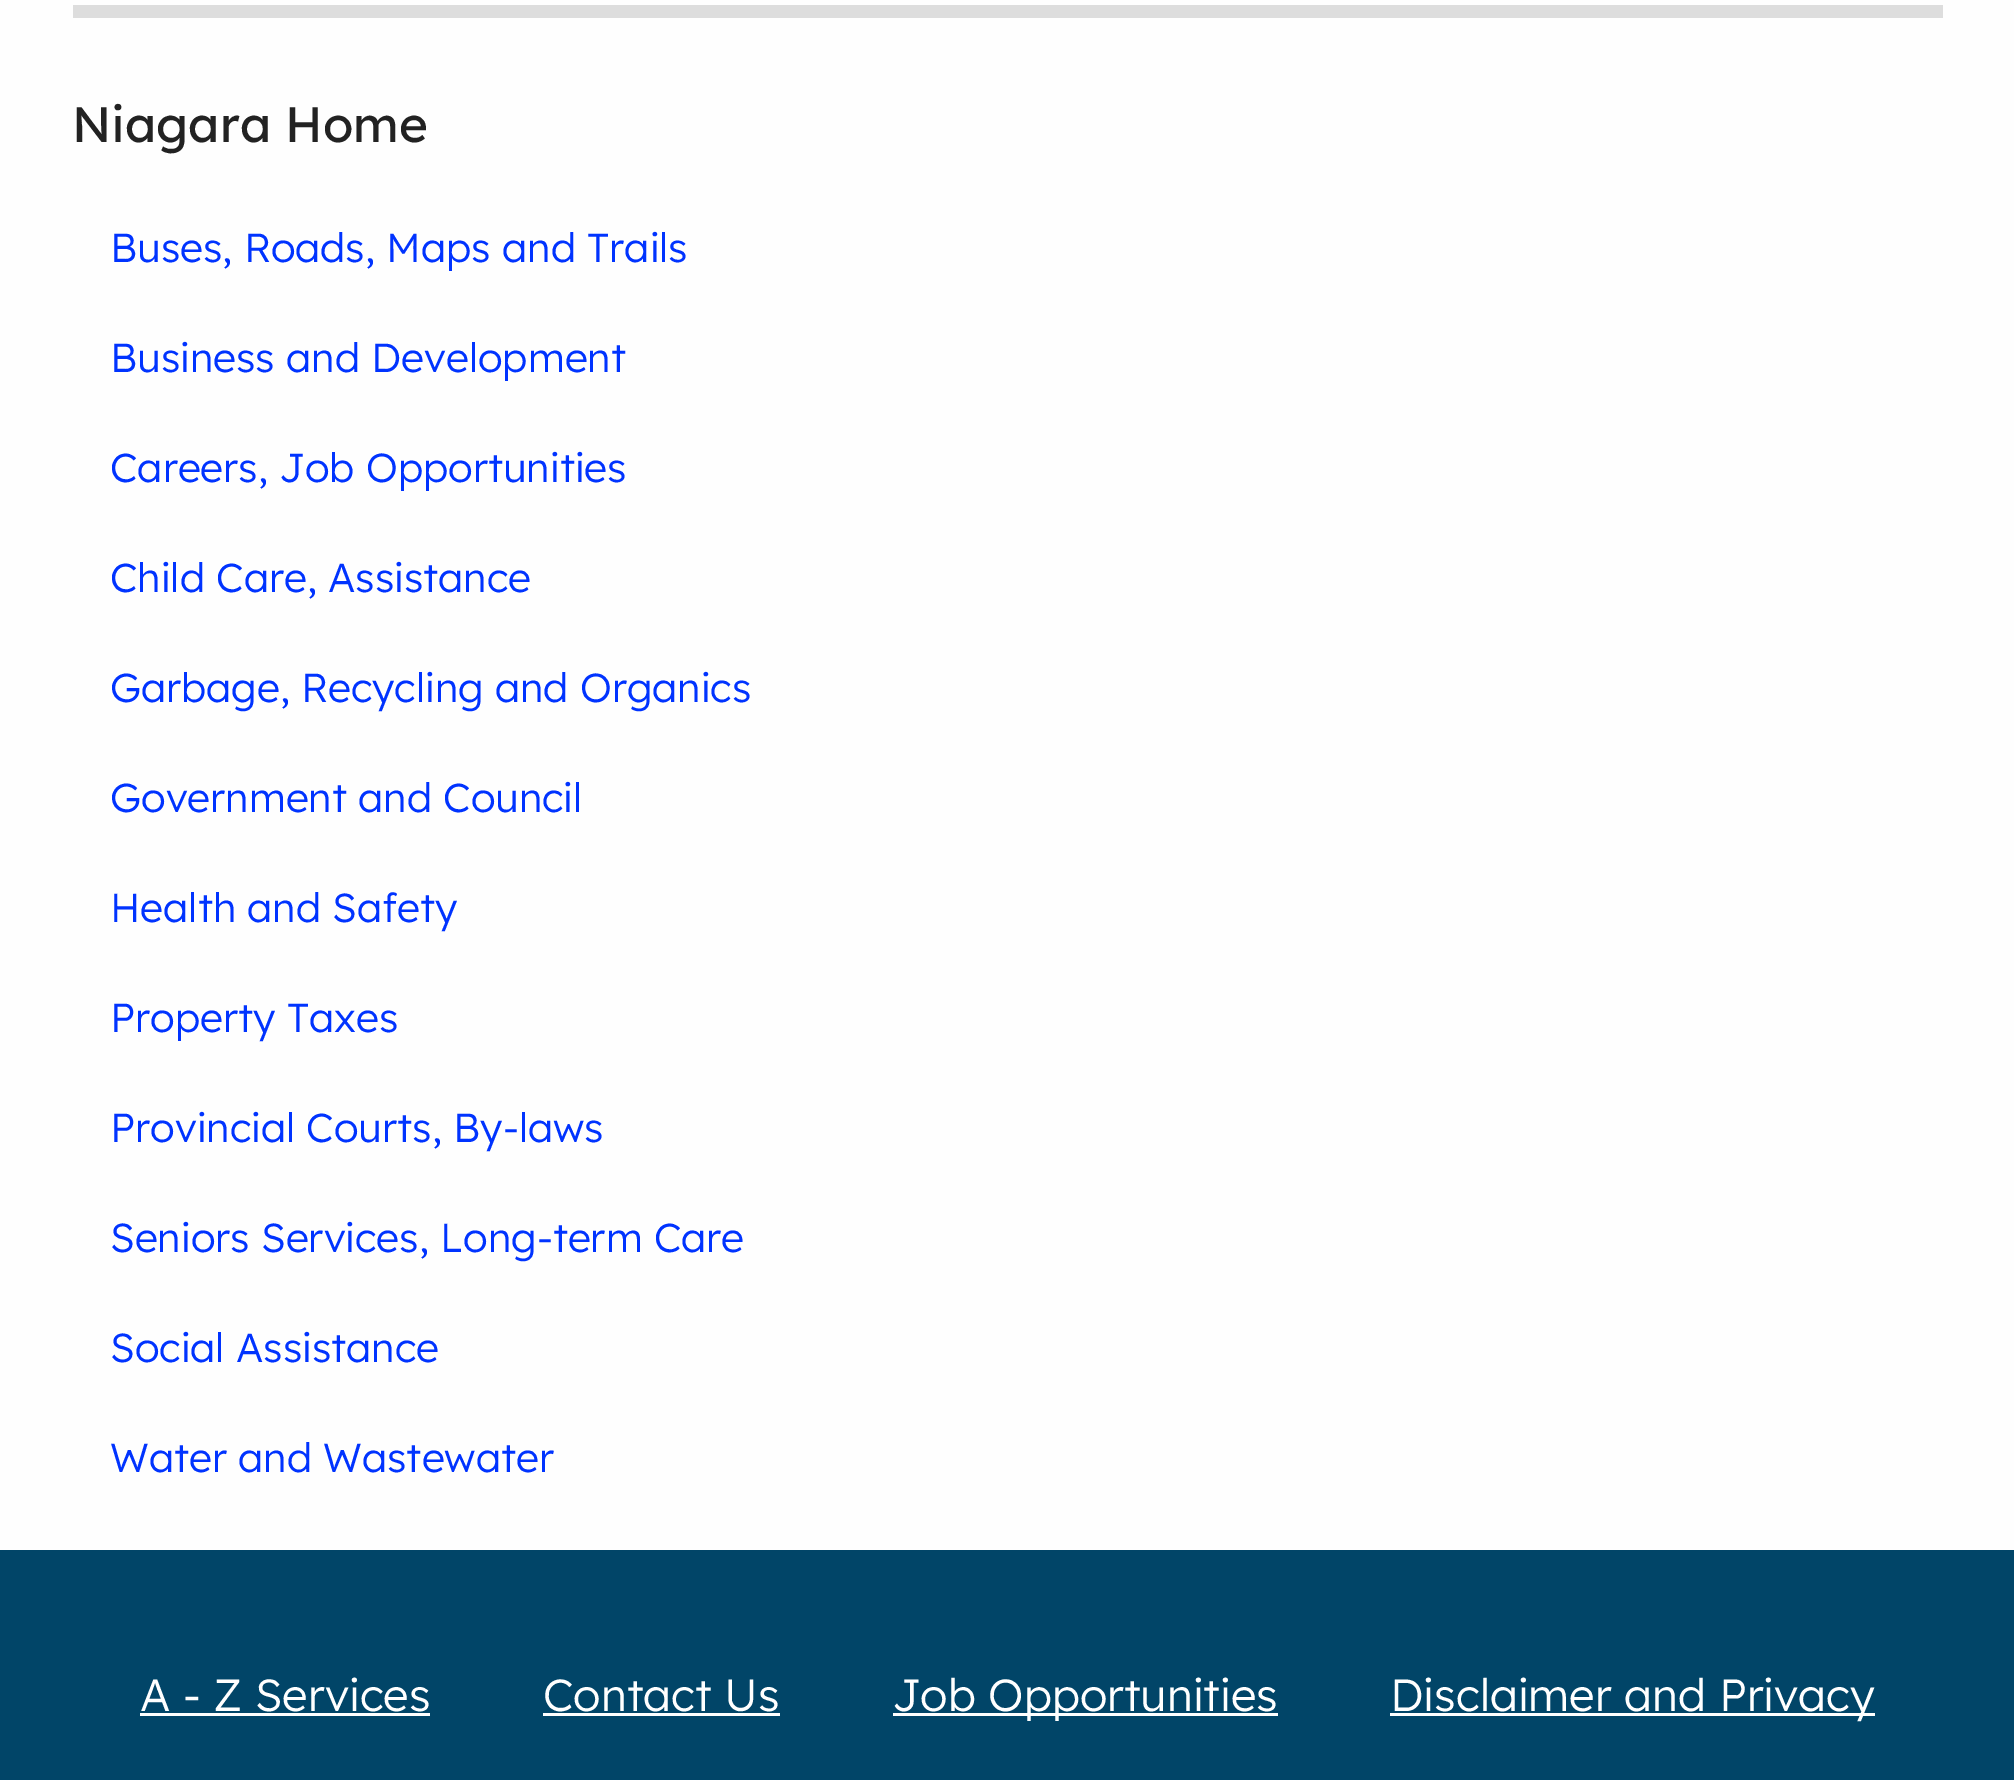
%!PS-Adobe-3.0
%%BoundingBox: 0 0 2014 1780
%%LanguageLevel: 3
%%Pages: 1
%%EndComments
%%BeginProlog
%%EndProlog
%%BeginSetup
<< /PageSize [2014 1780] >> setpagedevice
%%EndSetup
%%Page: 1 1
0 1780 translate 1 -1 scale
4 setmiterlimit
0.004 0.271 0.408 setrgbcolor
0 0 2014 1780 rectfill
0.996 setgray
0 0 2014 1550 rectfill
0.867 setgray
73 5 1870 13 rectfill
1 setgray
140 1713 290 3 rectfill
543 1713 237 3 rectfill
893 1713 385 3 rectfill
1390 1713 485 3 rectfill
/Lexend-Medium [49.5 0 0 -49.5 0 0] selectfont
0.133 setgray
72 142 moveto (Niagara Home) show
/Lexend-Regular [40.5 0 0 -40.5 0 0] selectfont
0 0.2 1 setrgbcolor
110 262 moveto (Buses, Roads, Maps and Trails) show
110 372 moveto (Business and Development) show
110 482 moveto (Careers, Job Opportunities) show
110 592 moveto (Child Care, Assistance) show
110 702 moveto (Garbage, Recycling and Organics) show
110 812 moveto (Government and Council) show
110 922 moveto (Health and Safety) show
110 1032 moveto (Property Taxes) show
110 1142 moveto (Provincial Courts, By-laws) show
110 1252 moveto (Seniors Services, Long-term Care) show
110 1362 moveto (Social Assistance) show
110 1472 moveto (Water and Wastewater) show
/Lexend-Regular [45 0 0 -45 0 0] selectfont
1 setgray
140 1711 moveto (A - Z Services) show
543 1711 moveto (Contact Us) show
892 1711 moveto (Job Opportunities) show
1390 1711 moveto (Disclaimer and Privacy) show
showpage
%%EOF
